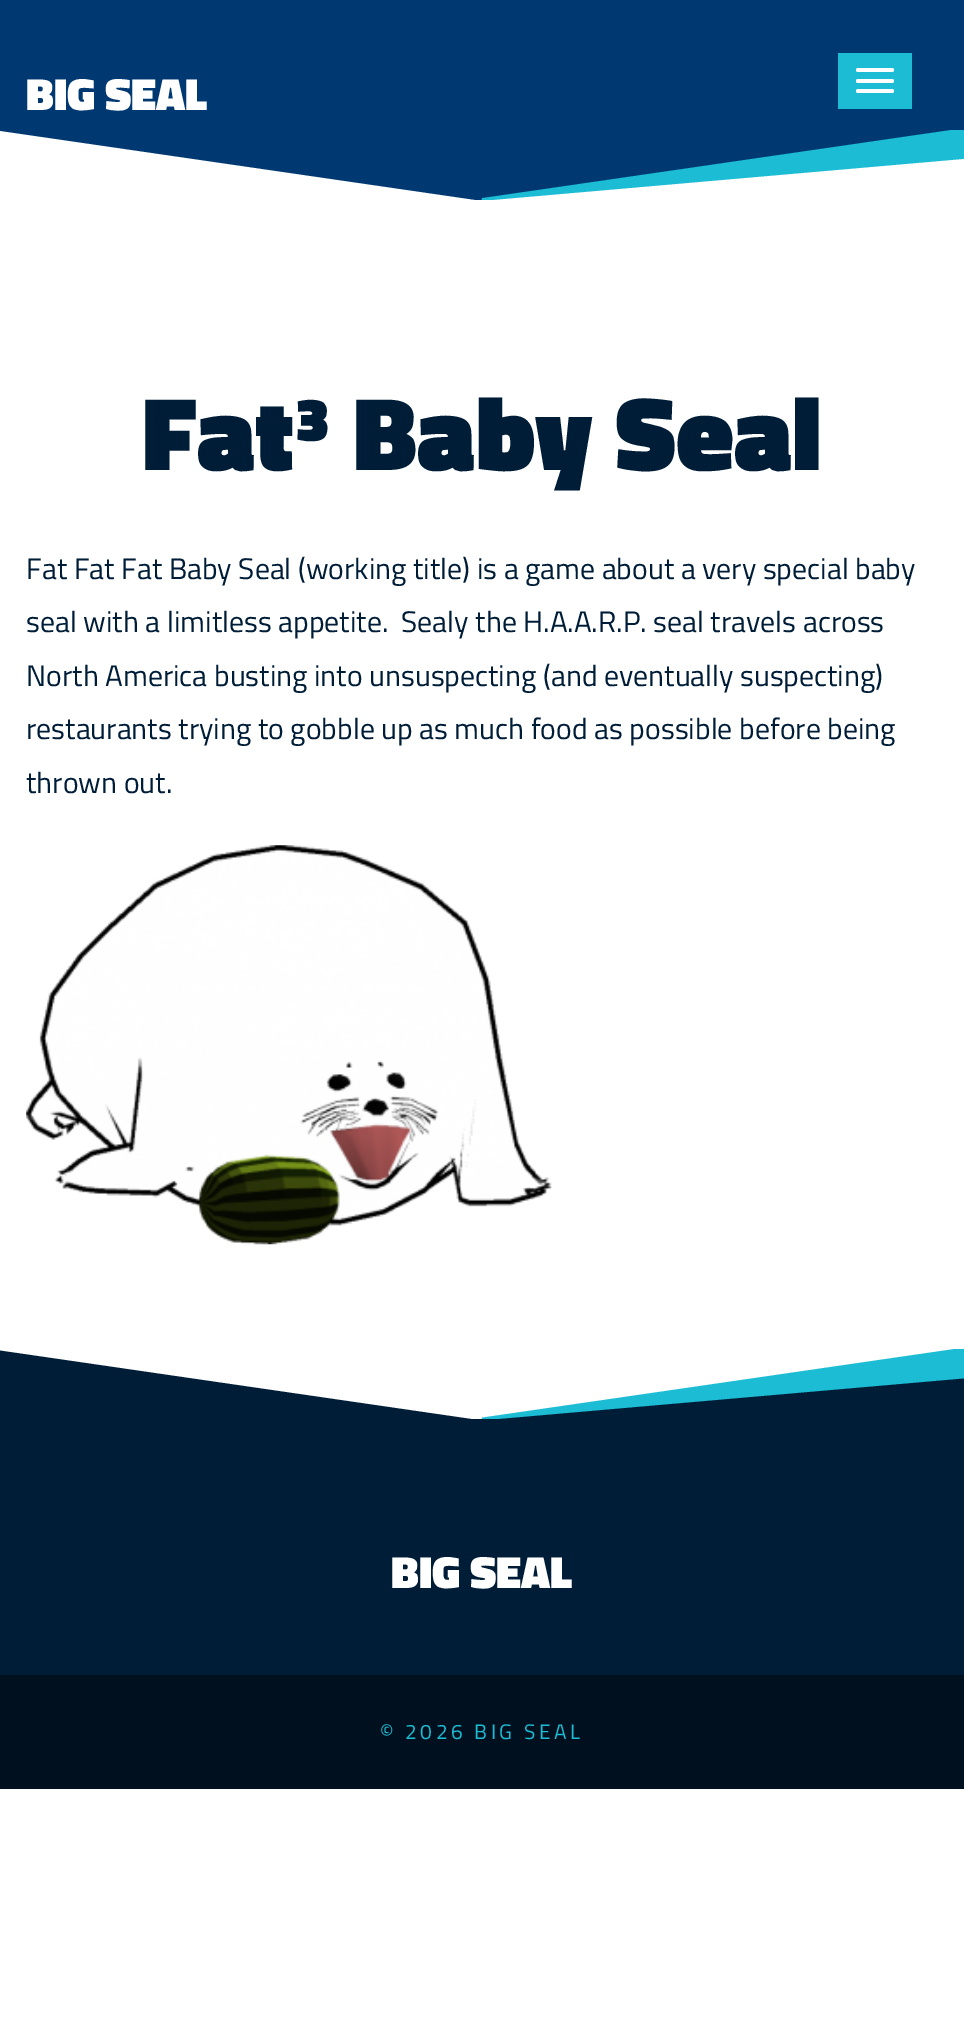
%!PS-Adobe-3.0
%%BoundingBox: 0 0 964 2030
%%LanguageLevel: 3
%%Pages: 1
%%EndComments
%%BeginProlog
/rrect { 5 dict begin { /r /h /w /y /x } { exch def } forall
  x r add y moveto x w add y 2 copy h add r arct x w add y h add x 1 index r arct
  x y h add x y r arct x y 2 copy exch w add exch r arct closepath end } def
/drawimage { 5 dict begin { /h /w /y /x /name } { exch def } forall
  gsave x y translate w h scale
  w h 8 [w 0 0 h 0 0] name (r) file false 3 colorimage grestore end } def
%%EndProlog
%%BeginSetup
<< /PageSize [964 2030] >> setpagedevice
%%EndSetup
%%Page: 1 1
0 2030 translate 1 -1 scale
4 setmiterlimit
1 setgray
0 0 964 2030 rectfill
0 0.22 0.443 setrgbcolor
0 0 964 130 rectfill
0.106 0.737 0.831 setrgbcolor
838 53 74 56 rectfill
1 setgray
856 68 38 4 2 rrect fill
856 79 38 4 2 rrect fill
856 89 38 4 2 rrect fill
0 0.22 0.443 setrgbcolor
newpath 0 130 moveto 482 200 lineto 964 130 lineto closepath fill
gsave
0 130 964 70 rectclip
2.6 setlinewidth
newpath 0 129.5 moveto 482 199.5 lineto 964 129.5 lineto closepath stroke
grestore
0.106 0.737 0.831 setrgbcolor
newpath 482 200 moveto 964 158 lineto 964 130 lineto closepath fill
gsave
0 130 964 70 rectclip
2.6 setlinewidth
newpath 482 199.5 moveto 964 157.5 lineto 964 129.5 lineto closepath stroke
grestore
(images/1.raw) 26 845 526 400 drawimage
0 0.114 0.22 setrgbcolor
0 1350 964 325 rectfill
1 setgray
newpath 0 1349 moveto 482 1419 lineto 964 1349 lineto closepath fill
gsave
0 1349 964 70 rectclip
2.6 setlinewidth
newpath 0 1349 moveto 482 1419 lineto 964 1349 lineto closepath stroke
grestore
0.106 0.737 0.831 setrgbcolor
newpath 482 1419 moveto 964 1377 lineto 964 1349 lineto closepath fill
gsave
0 1349 964 70 rectclip
2.6 setlinewidth
newpath 482 1419 moveto 964 1377 lineto 964 1349 lineto closepath stroke
grestore
0 0.063 0.122 setrgbcolor
0 1675 964 114 rectfill
/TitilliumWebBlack-Black [45.5 0 0 -45.5 0 0] selectfont
1 setgray
26 110 moveto (BIG SEAL) show
/TitilliumWebBlack-Black [105 0 0 -105 0 0] selectfont
0 0.114 0.22 setrgbcolor
142 470 moveto (Fat³ Baby Seal) show
/TitilliumWeb-Regular [29.75 0 0 -29.75 0 0] selectfont
26 579 moveto (Fat Fat Fat Baby Seal \(working title\) is a game about a very special baby) show
26 632 moveto (seal with a limitless appetite.  Sealy the H.A.A.R.P. seal travels across) show
26 686 moveto (North America busting into unsuspecting \(and eventually suspecting\)) show
26 739 moveto (restaurants trying to gobble up as much food as possible before being) show
26 793 moveto (thrown out.) show
/TitilliumWebBlack-Black [45.5 0 0 -45.5 0 0] selectfont
1 setgray
391 1588 moveto (BIG SEAL) show
/TitilliumWeb-Regular [21 0 0 -21 0 0] selectfont
0.106 0.737 0.831 setrgbcolor
380 1739 moveto 3.5 0 (© 2026 BIG SEAL) ashow
showpage
%%EOF
